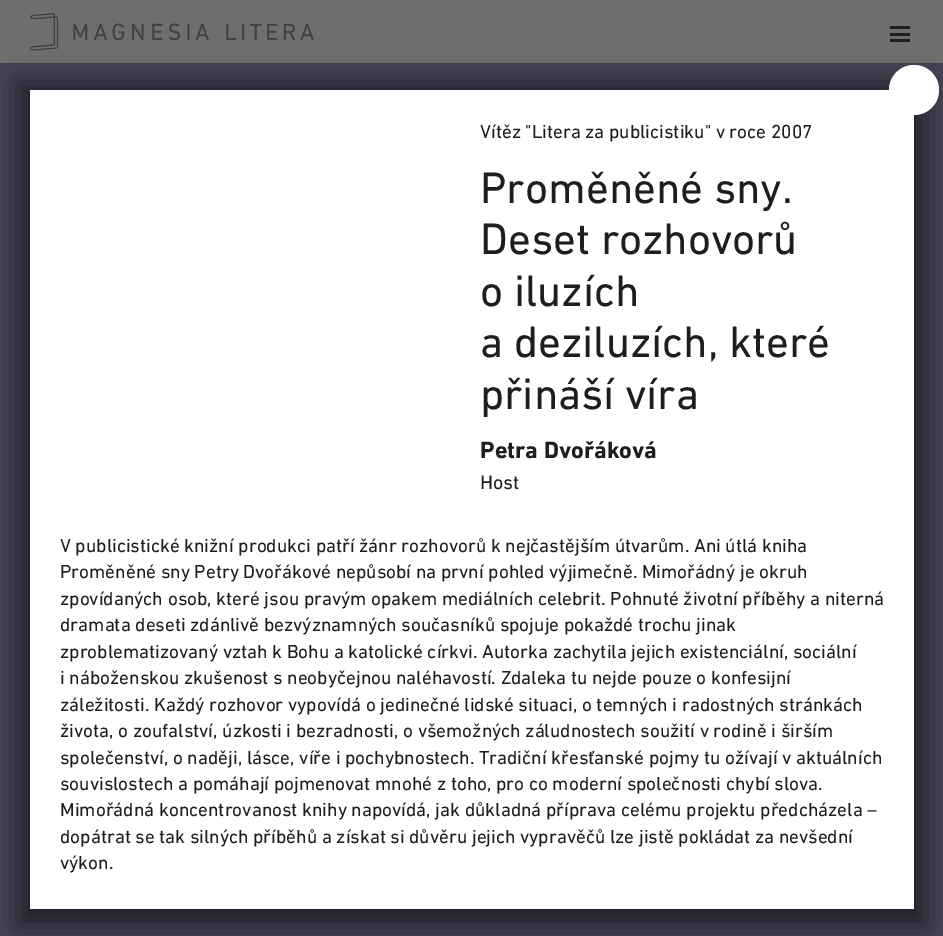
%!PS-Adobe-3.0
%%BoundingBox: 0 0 943 936
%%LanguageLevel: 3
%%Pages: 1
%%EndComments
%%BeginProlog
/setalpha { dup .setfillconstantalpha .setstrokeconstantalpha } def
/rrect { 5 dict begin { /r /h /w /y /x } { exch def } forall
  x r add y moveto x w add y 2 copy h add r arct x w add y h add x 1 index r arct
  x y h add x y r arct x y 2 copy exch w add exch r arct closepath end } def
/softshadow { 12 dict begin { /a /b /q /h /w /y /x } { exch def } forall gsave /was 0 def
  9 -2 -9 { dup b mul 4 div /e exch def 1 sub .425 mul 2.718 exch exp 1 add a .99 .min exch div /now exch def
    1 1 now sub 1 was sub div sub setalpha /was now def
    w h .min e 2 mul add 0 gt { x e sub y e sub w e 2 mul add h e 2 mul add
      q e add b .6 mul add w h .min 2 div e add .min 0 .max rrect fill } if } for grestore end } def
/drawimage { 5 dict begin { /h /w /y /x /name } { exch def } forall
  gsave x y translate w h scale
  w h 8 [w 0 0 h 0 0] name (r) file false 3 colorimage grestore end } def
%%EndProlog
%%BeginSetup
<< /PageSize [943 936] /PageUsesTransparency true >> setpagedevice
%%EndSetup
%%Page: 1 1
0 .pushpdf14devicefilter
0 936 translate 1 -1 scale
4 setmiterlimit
0.271 0.263 0.333 setrgbcolor
0 0 943 936 rectfill
0.431 setgray
0 0 943 63 rectfill
(images/1.raw) 30 13 284 38 drawimage
0.118 setgray
890 33 20 3 rectfill
890 26 20 3 rectfill
890 39 20 3 rectfill
1 setgray
30 90 884 819 rectfill
gsave
newpath 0 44 moveto 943 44 lineto 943 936 lineto 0 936 lineto closepath 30 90 moveto 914 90 lineto 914 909 lineto 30 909 lineto closepath eoclip newpath
0 setgray
18 83 908 843 0 12.5 0.5 softshadow
grestore
newpath 914 90 25 0 360 arc closepath fill
/DINNext-Regular [19.25 0 0 -19.25 0 0] selectfont
0.118 setgray
480 138 moveto (Vítěz "Litera za publicistiku" v roce 2007) show
/DINNext-Regular [44.75 0 0 -44.75 0 0] selectfont
480 203 moveto (Proměněné sny.) show
480 254 moveto (Deset rozhovorů) show
480 306 moveto (o iluzích) show
480 357 moveto (a deziluzích, které) show
480 409 moveto (přináší víra) show
/DINNext-Bold [24 0 0 -24 0 0] selectfont
480 458 moveto (Petra Dvořáková) show
/DINNext-Regular [20 0 0 -20 0 0] selectfont
480 489 moveto (Host) show
/DINNext-Regular [19.25 0 0 -19.25 0 0] selectfont
60 552 moveto (V publicistické knižní produkci patří žánr rozhovorů k nejčastějším útvarům. Ani útlá kniha) show
60 578 moveto (Proměněné sny Petry Dvořákové nepůsobí na první pohled výjimečně. Mimořádný je okruh) show
60 605 moveto (zpovídaných osob, které jsou pravým opakem mediálních celebrit. Pohnuté životní příběhy a niterná) show
60 631 moveto (dramata deseti zdánlivě bezvýznamných současníků spojuje pokaždé trochu jinak) show
60 658 moveto (zproblematizovaný vztah k Bohu a katolické církvi. Autorka zachytila jejich existenciální, sociální) show
60 684 moveto (i náboženskou zkušenost s neobyčejnou naléhavostí. Zdaleka tu nejde pouze o konfesijní) show
60 711 moveto (záležitosti. Každý rozhovor vypovídá o jedinečné lidské situaci, o temných i radostných stránkách) show
60 737 moveto (života, o zoufalství, úzkosti i bezradnosti, o všemožných záludnostech soužití v rodině i širším) show
60 764 moveto (společenství, o naději, lásce, víře i pochybnostech. Tradiční křesťanské pojmy tu ožívají v aktuálních) show
60 790 moveto (souvislostech a pomáhají pojmenovat mnohé z toho, pro co moderní společnosti chybí slova.) show
60 816 moveto (Mimořádná koncentrovanost knihy napovídá, jak důkladná příprava celému projektu předcházela –) show
60 843 moveto (dopátrat se tak silných příběhů a získat si důvěru jejich vypravěčů lze jistě pokládat za nevšední) show
60 869 moveto (výkon.) show
.poppdf14devicefilter showpage
%%EOF
